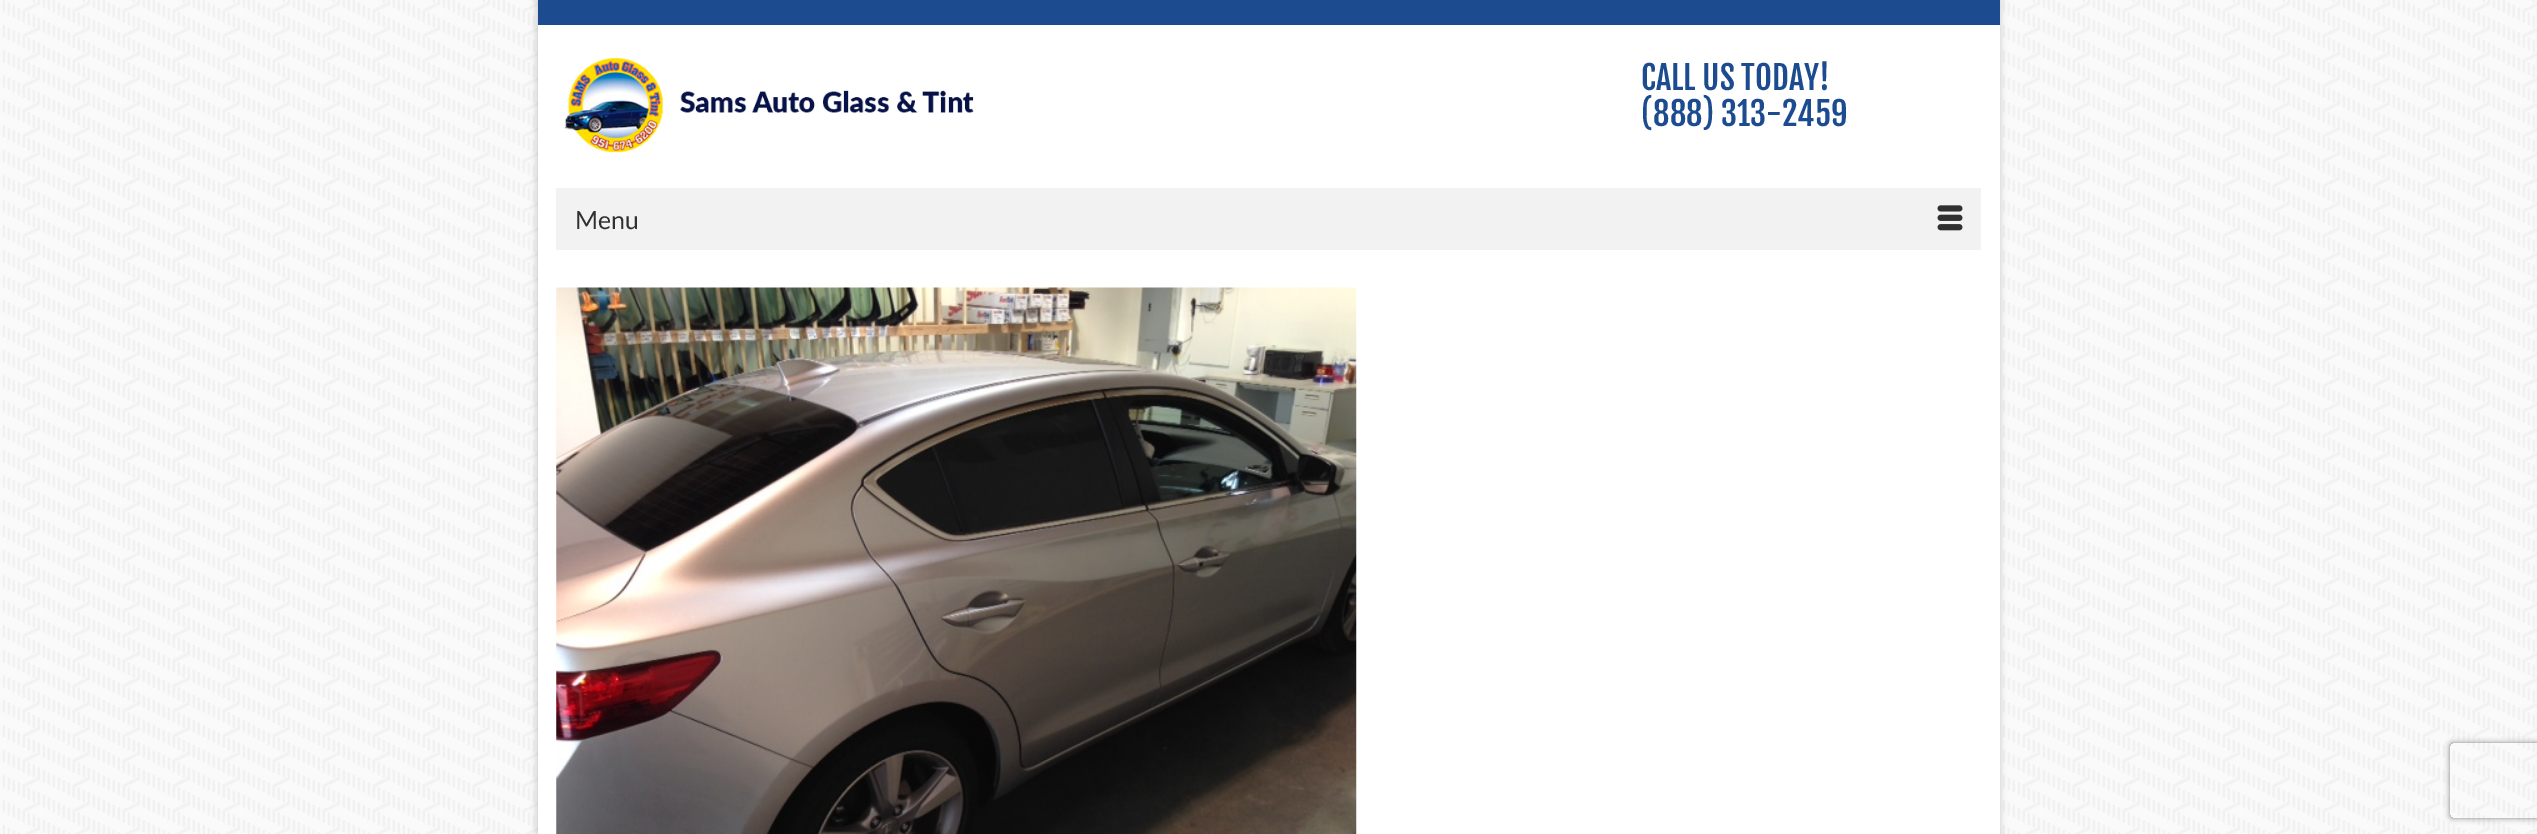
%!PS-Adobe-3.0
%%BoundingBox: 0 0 2537 834
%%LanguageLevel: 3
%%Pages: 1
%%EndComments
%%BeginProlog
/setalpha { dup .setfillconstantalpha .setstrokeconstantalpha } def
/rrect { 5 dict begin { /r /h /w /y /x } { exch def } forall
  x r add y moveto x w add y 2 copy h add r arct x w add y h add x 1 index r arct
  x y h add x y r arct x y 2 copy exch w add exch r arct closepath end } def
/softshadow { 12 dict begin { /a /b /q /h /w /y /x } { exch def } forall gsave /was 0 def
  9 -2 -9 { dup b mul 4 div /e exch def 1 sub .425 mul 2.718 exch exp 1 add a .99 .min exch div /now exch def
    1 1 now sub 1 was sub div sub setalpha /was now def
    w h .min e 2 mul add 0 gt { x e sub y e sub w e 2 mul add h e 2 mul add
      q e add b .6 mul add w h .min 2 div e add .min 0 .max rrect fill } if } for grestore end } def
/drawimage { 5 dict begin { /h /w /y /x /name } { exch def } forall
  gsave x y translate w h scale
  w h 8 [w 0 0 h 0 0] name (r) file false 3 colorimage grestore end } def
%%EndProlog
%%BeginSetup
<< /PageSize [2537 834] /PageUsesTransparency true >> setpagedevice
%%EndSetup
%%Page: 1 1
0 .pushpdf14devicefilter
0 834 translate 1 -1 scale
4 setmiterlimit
1 setgray
0 0 2537 834 rectfill
(images/1.raw) 0 0 2537 834 drawimage
0 setgray
536 -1 1465 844 0 3 0.16 softshadow
1 setgray
538 25 1462 809 rectfill
0.11 0.298 0.561 setrgbcolor
538 0 1462 25 rectfill
(images/2.raw) 564 58 410 95 drawimage
0.949 setgray
556 188 1425 62 rectfill
(images/3.raw) 1937 205 26 26 drawimage
(images/4.raw) 556 287 801 547 drawimage
gsave
newpath 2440 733 moveto 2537 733 lineto 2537 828 lineto 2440 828 lineto closepath 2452.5 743 moveto 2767.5 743 lineto 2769 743 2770 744 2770 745.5 curveto 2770 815.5 lineto 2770 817 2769 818 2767.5 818 curveto 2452.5 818 lineto 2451 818 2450 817 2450 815.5 curveto 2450 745.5 lineto 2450 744 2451 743 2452.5 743 curveto closepath eoclip newpath
0.502 setgray
2450 743 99 75 2.5 3 1 softshadow
grestore
/FjallaOne-Regular [32.5 0 0 -32.5 0 0] selectfont
0.11 0.298 0.561 setrgbcolor
1641 90 moveto (CALL US TODAY!) show
1641 126 moveto (\(888\) 313-2459) show
/Lato-Regular [25 0 0 -25 0 0] selectfont
0.188 setgray
575 229 moveto (Menu) show
.poppdf14devicefilter showpage
%%EOF
